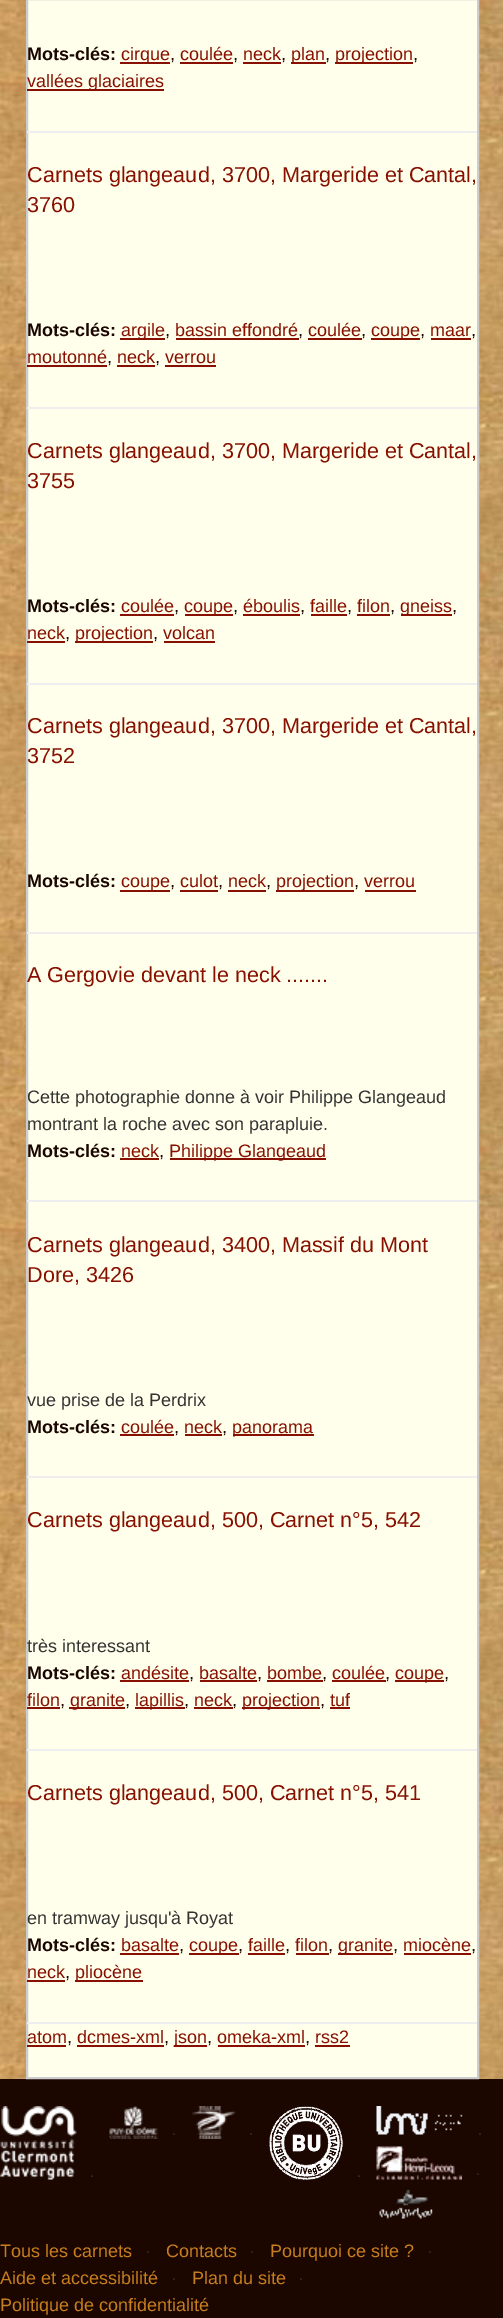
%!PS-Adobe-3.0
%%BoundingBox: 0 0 503 2318
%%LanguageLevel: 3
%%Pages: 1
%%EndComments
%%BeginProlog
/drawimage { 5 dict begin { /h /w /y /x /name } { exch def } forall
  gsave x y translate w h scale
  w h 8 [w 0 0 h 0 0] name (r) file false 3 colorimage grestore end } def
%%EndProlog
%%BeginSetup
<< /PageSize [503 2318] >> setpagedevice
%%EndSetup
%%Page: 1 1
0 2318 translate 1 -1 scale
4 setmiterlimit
0.106 0.024 0 setrgbcolor
0 0 503 2318 rectfill
(images/1.raw) 0 0 503 2079 drawimage
1 1 0.925 setrgbcolor
newpath 27 -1 moveto 478 -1 lineto 478 2078 lineto 27 2078 lineto closepath gsave fill grestore
0.8 setgray
2 setlinewidth
stroke
0.933 setgray
27 131 450 2 rectfill
0.529 0.063 0 setrgbcolor
120 62 50 2 rectfill
180 62 53 2 rectfill
243 62 38 2 rectfill
291 62 35 2 rectfill
335 62 78 2 rectfill
27 89 137 2 rectfill
0.933 setgray
27 407 450 2 rectfill
0.529 0.063 0 setrgbcolor
120 338 45 2 rectfill
176 338 123 2 rectfill
308 338 54 2 rectfill
371 338 49 2 rectfill
431 338 40 2 rectfill
27 365 80 2 rectfill
117 365 38 2 rectfill
165 365 51 2 rectfill
0.933 setgray
27 683 450 2 rectfill
0.529 0.063 0 setrgbcolor
120 614 54 2 rectfill
185 614 48 2 rectfill
243 614 57 2 rectfill
311 614 36 2 rectfill
357 614 33 2 rectfill
401 614 51 2 rectfill
27 641 38 2 rectfill
75 641 78 2 rectfill
164 641 51 2 rectfill
0.933 setgray
27 932 450 2 rectfill
0.529 0.063 0 setrgbcolor
120 890 50 2 rectfill
180 890 38 2 rectfill
228 890 38 2 rectfill
276 890 78 2 rectfill
365 890 51 2 rectfill
0.933 setgray
27 1200 450 2 rectfill
0.529 0.063 0 setrgbcolor
120 1158 39 2 rectfill
170 1158 156 2 rectfill
0.933 setgray
27 1476 450 2 rectfill
0.529 0.063 0 setrgbcolor
120 1434 54 2 rectfill
185 1434 37 2 rectfill
233 1434 81 2 rectfill
0.933 setgray
27 1749 450 2 rectfill
0.529 0.063 0 setrgbcolor
120 1680 69 2 rectfill
200 1680 57 2 rectfill
267 1680 56 2 rectfill
332 1680 54 2 rectfill
395 1680 49 2 rectfill
27 1707 33 2 rectfill
69 1707 56 2 rectfill
135 1707 50 2 rectfill
194 1707 39 2 rectfill
242 1707 78 2 rectfill
330 1707 20 2 rectfill
0.933 setgray
27 2022 450 2 rectfill
0.529 0.063 0 setrgbcolor
120 1953 59 2 rectfill
189 1953 50 2 rectfill
248 1953 37 2 rectfill
296 1953 33 2 rectfill
338 1953 55 2 rectfill
404 1953 67 2 rectfill
27 1980 38 2 rectfill
75 1980 68 2 rectfill
27 2045 39 2 rectfill
77 2045 87 2 rectfill
174 2045 33 2 rectfill
218 2045 87 2 rectfill
315 2045 35 2 rectfill
(images/2.raw) 109 2106 49 33 drawimage
(images/3.raw) 192 2106 44 33 drawimage
(images/4.raw) 376 2106 87 29 drawimage
(images/5.raw) 376 2146 86 34 drawimage
(images/6.raw) 0 2106 77 74 drawimage
(images/7.raw) 269 2106 74 74 drawimage
(images/8.raw) 379 2189 54 30 drawimage
/LiberationSans-Bold [18 0 0 -18 0 0] selectfont
0.106 0.024 0 setrgbcolor
27 60 moveto (Mots-clés:) show
/LiberationSans-Regular [18 0 0 -18 0 0] selectfont
0.529 0.063 0 setrgbcolor
121 60 moveto (cirque) show
0.106 0.024 0 setrgbcolor
170 60 moveto (,) show
0.529 0.063 0 setrgbcolor
180 60 moveto (coulée) show
0.106 0.024 0 setrgbcolor
233 60 moveto (,) show
0.529 0.063 0 setrgbcolor
243 60 moveto (neck) show
0.106 0.024 0 setrgbcolor
281 60 moveto (,) show
0.529 0.063 0 setrgbcolor
291 60 moveto (plan) show
0.106 0.024 0 setrgbcolor
325 60 moveto (,) show
0.529 0.063 0 setrgbcolor
335 60 moveto (projection) show
0.106 0.024 0 setrgbcolor
413 60 moveto (,) show
0.529 0.063 0 setrgbcolor
27 87 moveto (vallées glaciaires) show
/LiberationSans-Regular [21.6 0 0 -21.6 0 0] selectfont
27 182 moveto (Carnets glangeaud, 3700, Margeride et Cantal,) show
27 212 moveto (3760) show
/LiberationSans-Bold [18 0 0 -18 0 0] selectfont
0.106 0.024 0 setrgbcolor
27 336 moveto (Mots-clés:) show
/LiberationSans-Regular [18 0 0 -18 0 0] selectfont
0.529 0.063 0 setrgbcolor
121 336 moveto (argile) show
0.106 0.024 0 setrgbcolor
165 336 moveto (,) show
0.529 0.063 0 setrgbcolor
175 336 moveto (bassin effondré) show
0.106 0.024 0 setrgbcolor
298 336 moveto (,) show
0.529 0.063 0 setrgbcolor
308 336 moveto (coulée) show
0.106 0.024 0 setrgbcolor
361 336 moveto (,) show
0.529 0.063 0 setrgbcolor
371 336 moveto (coupe) show
0.106 0.024 0 setrgbcolor
420 336 moveto (,) show
0.529 0.063 0 setrgbcolor
430 336 moveto (maar) show
0.106 0.024 0 setrgbcolor
471 336 moveto (,) show
0.529 0.063 0 setrgbcolor
27 363 moveto (moutonné) show
0.106 0.024 0 setrgbcolor
107 363 moveto (,) show
0.529 0.063 0 setrgbcolor
117 363 moveto (neck) show
0.106 0.024 0 setrgbcolor
155 363 moveto (,) show
0.529 0.063 0 setrgbcolor
165 363 moveto (verrou) show
/LiberationSans-Regular [21.6 0 0 -21.6 0 0] selectfont
27 458 moveto (Carnets glangeaud, 3700, Margeride et Cantal,) show
27 488 moveto (3755) show
/LiberationSans-Bold [18 0 0 -18 0 0] selectfont
0.106 0.024 0 setrgbcolor
27 612 moveto (Mots-clés:) show
/LiberationSans-Regular [18 0 0 -18 0 0] selectfont
0.529 0.063 0 setrgbcolor
121 612 moveto (coulée) show
0.106 0.024 0 setrgbcolor
174 612 moveto (,) show
0.529 0.063 0 setrgbcolor
184 612 moveto (coupe) show
0.106 0.024 0 setrgbcolor
233 612 moveto (,) show
0.529 0.063 0 setrgbcolor
243 612 moveto (éboulis) show
0.106 0.024 0 setrgbcolor
300 612 moveto (,) show
0.529 0.063 0 setrgbcolor
310 612 moveto (faille) show
0.106 0.024 0 setrgbcolor
347 612 moveto (,) show
0.529 0.063 0 setrgbcolor
357 612 moveto (filon) show
0.106 0.024 0 setrgbcolor
390 612 moveto (,) show
0.529 0.063 0 setrgbcolor
400 612 moveto (gneiss) show
0.106 0.024 0 setrgbcolor
452 612 moveto (,) show
0.529 0.063 0 setrgbcolor
27 639 moveto (neck) show
0.106 0.024 0 setrgbcolor
65 639 moveto (,) show
0.529 0.063 0 setrgbcolor
75 639 moveto (projection) show
0.106 0.024 0 setrgbcolor
153 639 moveto (,) show
0.529 0.063 0 setrgbcolor
163 639 moveto (volcan) show
/LiberationSans-Regular [21.6 0 0 -21.6 0 0] selectfont
27 733 moveto (Carnets glangeaud, 3700, Margeride et Cantal,) show
27 763 moveto (3752) show
/LiberationSans-Bold [18 0 0 -18 0 0] selectfont
0.106 0.024 0 setrgbcolor
27 887 moveto (Mots-clés:) show
/LiberationSans-Regular [18 0 0 -18 0 0] selectfont
0.529 0.063 0 setrgbcolor
121 887 moveto (coupe) show
0.106 0.024 0 setrgbcolor
170 887 moveto (,) show
0.529 0.063 0 setrgbcolor
180 887 moveto (culot) show
0.106 0.024 0 setrgbcolor
218 887 moveto (,) show
0.529 0.063 0 setrgbcolor
228 887 moveto (neck) show
0.106 0.024 0 setrgbcolor
266 887 moveto (,) show
0.529 0.063 0 setrgbcolor
276 887 moveto (projection) show
0.106 0.024 0 setrgbcolor
354 887 moveto (,) show
0.529 0.063 0 setrgbcolor
364 887 moveto (verrou) show
/LiberationSans-Regular [21.6 0 0 -21.6 0 0] selectfont
27 982 moveto (A Gergovie devant le neck .......) show
/LiberationSans-Regular [18 0 0 -18 0 0] selectfont
0.2 setgray
27 1103 moveto (Cette photographie donne à voir Philippe Glangeaud) show
27 1130 moveto (montrant la roche avec son parapluie.) show
/LiberationSans-Bold [18 0 0 -18 0 0] selectfont
0.106 0.024 0 setrgbcolor
27 1157 moveto (Mots-clés:) show
/LiberationSans-Regular [18 0 0 -18 0 0] selectfont
0.529 0.063 0 setrgbcolor
121 1157 moveto (neck) show
0.106 0.024 0 setrgbcolor
159 1157 moveto (,) show
0.529 0.063 0 setrgbcolor
169 1157 moveto (Philippe Glangeaud) show
/LiberationSans-Regular [21.6 0 0 -21.6 0 0] selectfont
27 1252 moveto (Carnets glangeaud, 3400, Massif du Mont) show
27 1282 moveto (Dore, 3426) show
/LiberationSans-Regular [18 0 0 -18 0 0] selectfont
0.2 setgray
27 1406 moveto (vue prise de la Perdrix) show
/LiberationSans-Bold [18 0 0 -18 0 0] selectfont
0.106 0.024 0 setrgbcolor
27 1433 moveto (Mots-clés:) show
/LiberationSans-Regular [18 0 0 -18 0 0] selectfont
0.529 0.063 0 setrgbcolor
121 1433 moveto (coulée) show
0.106 0.024 0 setrgbcolor
174 1433 moveto (,) show
0.529 0.063 0 setrgbcolor
184 1433 moveto (neck) show
0.106 0.024 0 setrgbcolor
222 1433 moveto (,) show
0.529 0.063 0 setrgbcolor
232 1433 moveto (panorama) show
/LiberationSans-Regular [21.6 0 0 -21.6 0 0] selectfont
27 1527 moveto (Carnets glangeaud, 500, Carnet n°5, 542) show
/LiberationSans-Regular [18 0 0 -18 0 0] selectfont
0.2 setgray
27 1652 moveto (très interessant) show
/LiberationSans-Bold [18 0 0 -18 0 0] selectfont
0.106 0.024 0 setrgbcolor
27 1679 moveto (Mots-clés:) show
/LiberationSans-Regular [18 0 0 -18 0 0] selectfont
0.529 0.063 0 setrgbcolor
121 1679 moveto (andésite) show
0.106 0.024 0 setrgbcolor
189 1679 moveto (,) show
0.529 0.063 0 setrgbcolor
199 1679 moveto (basalte) show
0.106 0.024 0 setrgbcolor
257 1679 moveto (,) show
0.529 0.063 0 setrgbcolor
267 1679 moveto (bombe) show
0.106 0.024 0 setrgbcolor
322 1679 moveto (,) show
0.529 0.063 0 setrgbcolor
332 1679 moveto (coulée) show
0.106 0.024 0 setrgbcolor
385 1679 moveto (,) show
0.529 0.063 0 setrgbcolor
395 1679 moveto (coupe) show
0.106 0.024 0 setrgbcolor
444 1679 moveto (,) show
0.529 0.063 0 setrgbcolor
27 1706 moveto (filon) show
0.106 0.024 0 setrgbcolor
60 1706 moveto (,) show
0.529 0.063 0 setrgbcolor
70 1706 moveto (granite) show
0.106 0.024 0 setrgbcolor
125 1706 moveto (,) show
0.529 0.063 0 setrgbcolor
135 1706 moveto (lapillis) show
0.106 0.024 0 setrgbcolor
184 1706 moveto (,) show
0.529 0.063 0 setrgbcolor
194 1706 moveto (neck) show
0.106 0.024 0 setrgbcolor
232 1706 moveto (,) show
0.529 0.063 0 setrgbcolor
242 1706 moveto (projection) show
0.106 0.024 0 setrgbcolor
320 1706 moveto (,) show
0.529 0.063 0 setrgbcolor
330 1706 moveto (tuf) show
/LiberationSans-Regular [21.6 0 0 -21.6 0 0] selectfont
27 1800 moveto (Carnets glangeaud, 500, Carnet n°5, 541) show
/LiberationSans-Regular [18 0 0 -18 0 0] selectfont
0.2 setgray
27 1924 moveto (en tramway jusqu'à Royat) show
/LiberationSans-Bold [18 0 0 -18 0 0] selectfont
0.106 0.024 0 setrgbcolor
27 1951 moveto (Mots-clés:) show
/LiberationSans-Regular [18 0 0 -18 0 0] selectfont
0.529 0.063 0 setrgbcolor
121 1951 moveto (basalte) show
0.106 0.024 0 setrgbcolor
179 1951 moveto (,) show
0.529 0.063 0 setrgbcolor
189 1951 moveto (coupe) show
0.106 0.024 0 setrgbcolor
238 1951 moveto (,) show
0.529 0.063 0 setrgbcolor
248 1951 moveto (faille) show
0.106 0.024 0 setrgbcolor
285 1951 moveto (,) show
0.529 0.063 0 setrgbcolor
295 1951 moveto (filon) show
0.106 0.024 0 setrgbcolor
328 1951 moveto (,) show
0.529 0.063 0 setrgbcolor
338 1951 moveto (granite) show
0.106 0.024 0 setrgbcolor
393 1951 moveto (,) show
0.529 0.063 0 setrgbcolor
403 1951 moveto (miocène) show
0.106 0.024 0 setrgbcolor
471 1951 moveto (,) show
0.529 0.063 0 setrgbcolor
27 1978 moveto (neck) show
0.106 0.024 0 setrgbcolor
65 1978 moveto (,) show
0.529 0.063 0 setrgbcolor
75 1978 moveto (pliocène) show
27 2043 moveto (atom) show
0.106 0.024 0 setrgbcolor
67 2043 moveto (,) show
0.529 0.063 0 setrgbcolor
77 2043 moveto (dcmes-xml) show
0.106 0.024 0 setrgbcolor
164 2043 moveto (,) show
0.529 0.063 0 setrgbcolor
174 2043 moveto (json) show
0.106 0.024 0 setrgbcolor
207 2043 moveto (,) show
0.529 0.063 0 setrgbcolor
217 2043 moveto (omeka-xml) show
0.106 0.024 0 setrgbcolor
305 2043 moveto (,) show
0.529 0.063 0 setrgbcolor
315 2043 moveto (rss2) show
0.2 setgray
171 2139 moveto (·) show
248 2139 moveto (·) show
477 2139 moveto (·) show
475 2179 moveto (·) show
89 2181 moveto (·) show
356 2181 moveto (·) show
0.78 0.494 0.122 setrgbcolor
0 2257 moveto (Tous les carnets) show
0.2 setgray
145 2257 moveto (·) show
0.78 0.494 0.122 setrgbcolor
166 2257 moveto (Contacts) show
0.2 setgray
249 2257 moveto (·) show
0.78 0.494 0.122 setrgbcolor
270 2257 moveto (Pourquoi ce site ?) show
0.2 setgray
427 2257 moveto (·) show
0.78 0.494 0.122 setrgbcolor
0 2284 moveto (Aide et accessibilité) show
0.2 setgray
171 2284 moveto (·) show
0.78 0.494 0.122 setrgbcolor
192 2284 moveto (Plan du site) show
0.2 setgray
298 2284 moveto (·) show
0.78 0.494 0.122 setrgbcolor
0 2311 moveto (Politique de confidentialité) show
showpage
%%EOF
